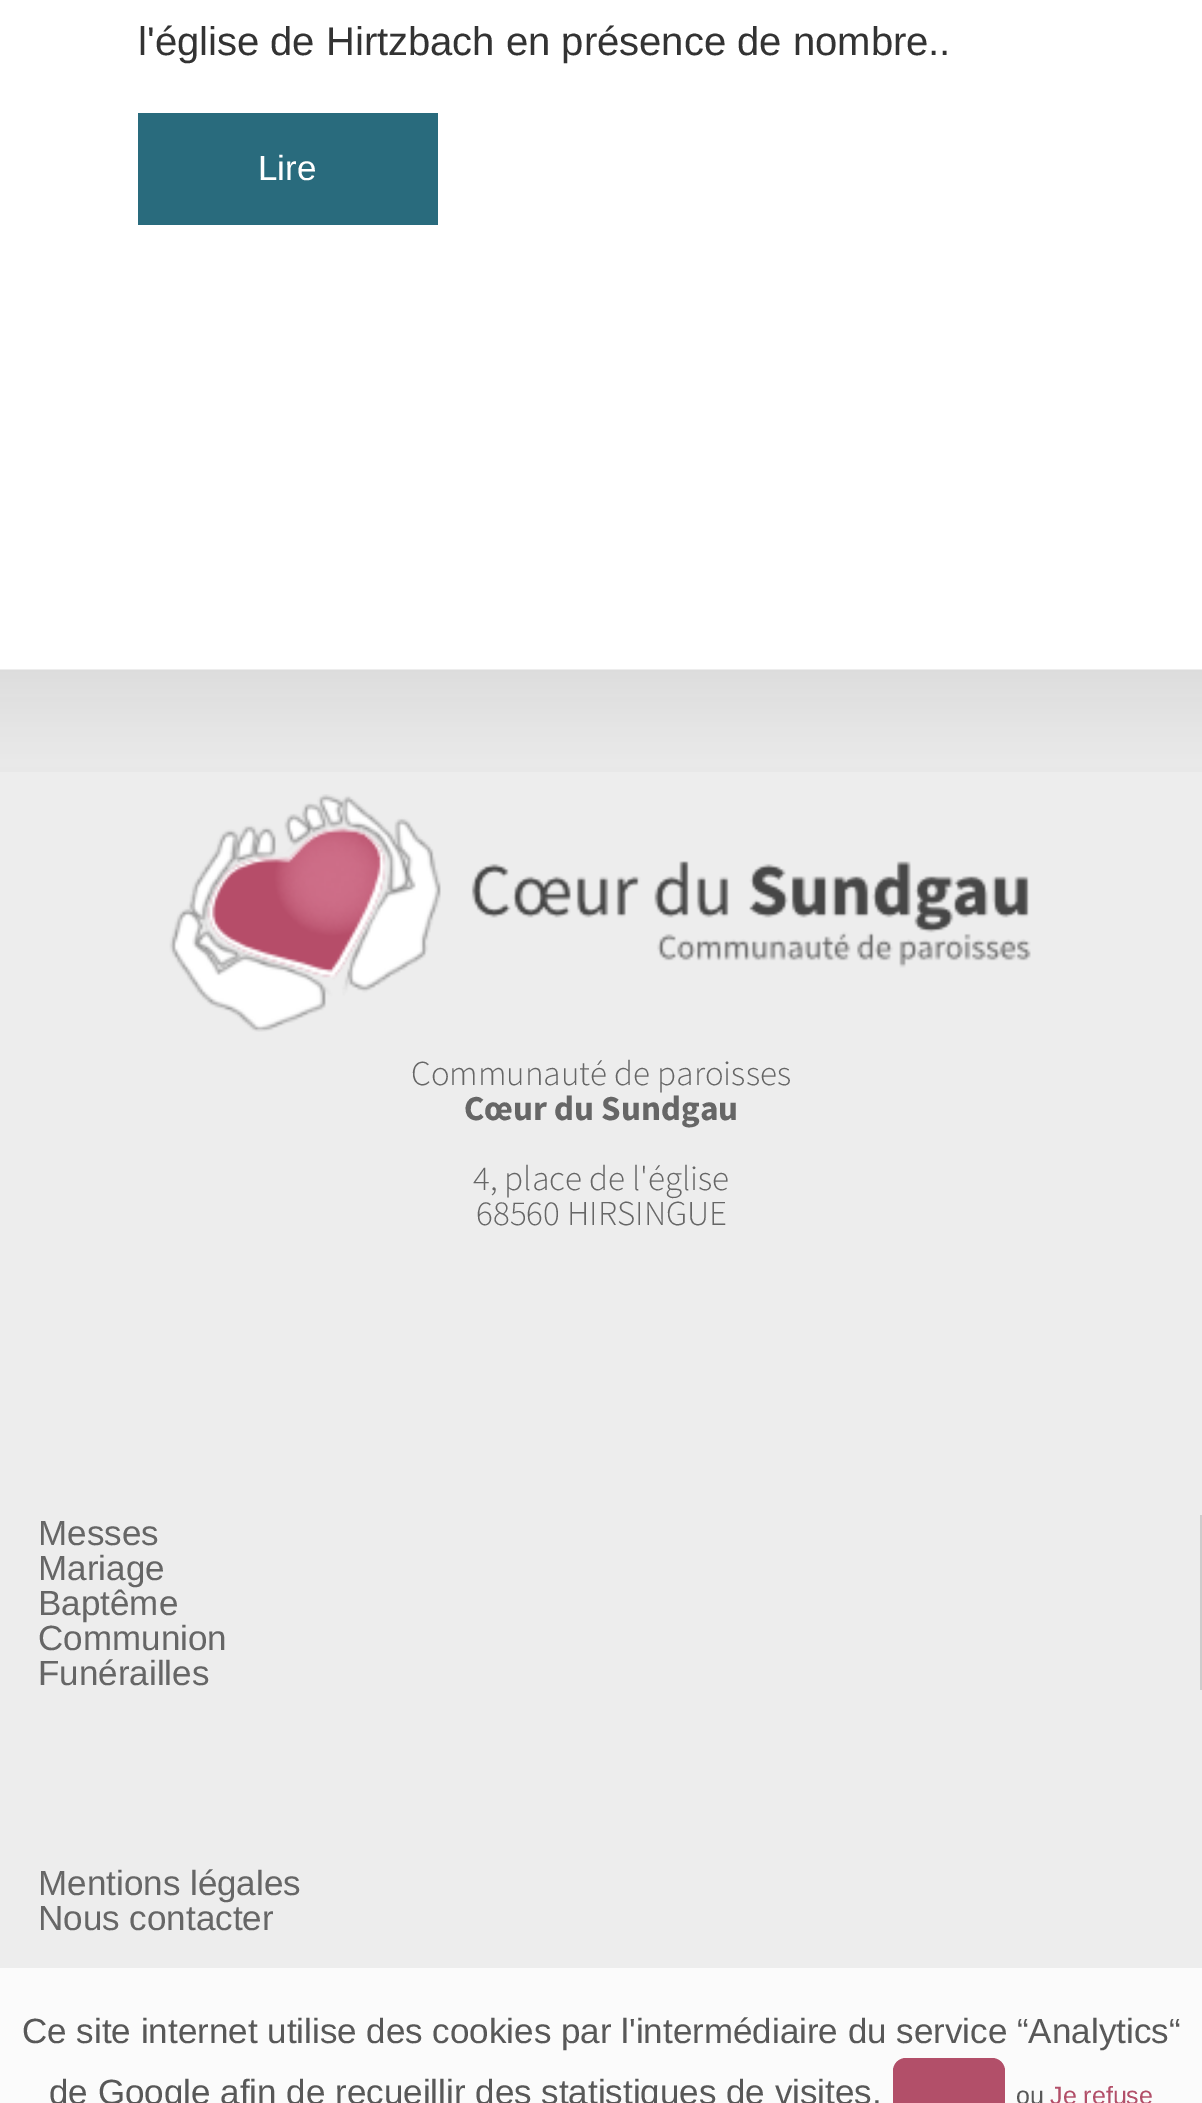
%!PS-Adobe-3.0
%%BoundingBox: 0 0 1202 2103
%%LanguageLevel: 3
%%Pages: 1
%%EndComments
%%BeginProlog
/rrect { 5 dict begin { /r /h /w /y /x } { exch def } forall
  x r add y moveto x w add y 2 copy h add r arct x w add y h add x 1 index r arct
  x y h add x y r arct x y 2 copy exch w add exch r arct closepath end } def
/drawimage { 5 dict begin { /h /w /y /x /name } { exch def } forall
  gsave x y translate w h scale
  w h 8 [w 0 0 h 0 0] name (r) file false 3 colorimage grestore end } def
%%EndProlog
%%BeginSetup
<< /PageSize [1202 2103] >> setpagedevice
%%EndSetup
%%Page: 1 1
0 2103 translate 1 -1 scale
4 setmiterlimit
1 setgray
0 0 1202 2103 rectfill
0.161 0.42 0.49 setrgbcolor
138 113 300 112 rectfill
0.929 setgray
0 772 1202 1196 rectfill
(images/1.raw) 0 669 1202 103 drawimage
(images/2.raw) 169 794 862 238 drawimage
0.8 setgray
1200 1515 2 175 rectfill
0.984 setgray
0 1968 1202 135 rectfill
0.698 0.31 0.412 setrgbcolor
893 2058 112 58 13 rrect fill
/LiberationSans-Regular [40 0 0 -40 0 0] selectfont
0.2 setgray
138 55 moveto (l'église de Hirtzbach en présence de nombre..) show
/LiberationSans-Regular [35 0 0 -35 0 0] selectfont
1 setgray
258 180 moveto (Lire) show
/SourceSansPro-Light [35 0 0 -35 0 0] selectfont
0.4 setgray
411 1085 moveto (Communauté de paroisses) show
/SourceSansPro-Bold [35 0 0 -35 0 0] selectfont
464 1120 moveto (Cœur du Sundgau) show
/SourceSansPro-Light [35 0 0 -35 0 0] selectfont
473 1190 moveto (4, place de l'église) show
476 1225 moveto (68560 HIRSINGUE) show
/LiberationSans-Regular [35 0 0 -35 0 0] selectfont
38 1545 moveto (Messes) show
38 1580 moveto (Mariage) show
38 1615 moveto (Baptême) show
38 1650 moveto (Communion) show
38 1685 moveto (Funérailles) show
38 1895 moveto (Mentions légales) show
38 1930 moveto (Nous contacter) show
0.345 setgray
22 2043 moveto (Ce site internet utilise des cookies par l'intermédiaire du service “Analytics“) show
49 2104 moveto (de Google afin de recueillir des statistiques de visites.) show
/LiberationSans-Regular [25 0 0 -25 0 0] selectfont
1016 2104 moveto (ou) show
0.698 0.31 0.412 setrgbcolor
1050 2104 moveto (Je refuse) show
showpage
%%EOF
